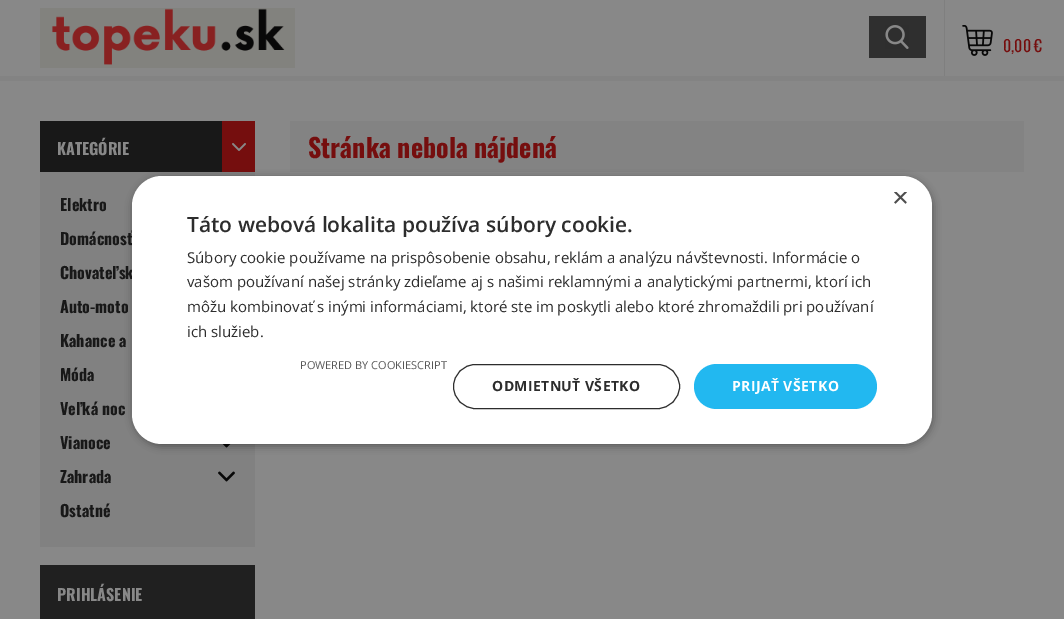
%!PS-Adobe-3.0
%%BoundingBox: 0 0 1064 619
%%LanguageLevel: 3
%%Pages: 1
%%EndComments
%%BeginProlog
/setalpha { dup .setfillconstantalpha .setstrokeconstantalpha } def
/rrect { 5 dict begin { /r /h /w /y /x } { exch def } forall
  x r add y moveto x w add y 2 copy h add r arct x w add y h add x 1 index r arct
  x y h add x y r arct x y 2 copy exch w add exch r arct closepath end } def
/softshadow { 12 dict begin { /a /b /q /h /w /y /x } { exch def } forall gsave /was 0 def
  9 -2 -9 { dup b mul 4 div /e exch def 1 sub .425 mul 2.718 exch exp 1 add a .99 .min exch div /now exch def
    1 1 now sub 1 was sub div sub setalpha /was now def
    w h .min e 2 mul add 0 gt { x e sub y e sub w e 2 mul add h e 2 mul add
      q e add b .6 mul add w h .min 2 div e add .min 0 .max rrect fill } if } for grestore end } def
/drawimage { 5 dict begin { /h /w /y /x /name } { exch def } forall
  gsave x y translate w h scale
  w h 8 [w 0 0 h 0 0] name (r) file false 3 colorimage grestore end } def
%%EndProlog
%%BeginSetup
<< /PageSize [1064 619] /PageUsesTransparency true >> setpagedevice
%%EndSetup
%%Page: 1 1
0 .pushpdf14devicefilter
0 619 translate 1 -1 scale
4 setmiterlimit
0.533 setgray
0 0 1064 619 rectfill
0.514 setgray
0 76 1064 5 rectfill
(images/1.raw) 40 8 255 60 drawimage
0.498 setgray
944 0 1 76 rectfill
0.184 setgray
869 16 57 42 rectfill
(images/2.raw) 885 25 24 24 drawimage
(images/3.raw) 962 25 31 31 drawimage
0.506 setgray
40 172 215 375 rectfill
0.094 setgray
40 121 182 51 rectfill
(images/4.raw) 222 121 33 51 drawimage
(images/5.raw) 222 444 9 4 drawimage
(images/6.raw) 218 471 17 11 drawimage
0.125 setgray
40 565 215 54 rectfill
0.514 setgray
290 121 734 51 rectfill
0 setgray
133 178 800 268 30 4 0.35 softshadow
/Oswald-Regular [16 0 0 -16 0 0] selectfont
0.459 0.055 0.055 setrgbcolor
1003 52 moveto (0,00 €) show
/Oswald-Bold [16 0 0 -16 0 0] selectfont
0.533 setgray
57 155 moveto (KATEGÓRIE) show
0.094 setgray
60 211 moveto (Elektro) show
60 245 moveto (Domácnosť) show
60 279 moveto (Chovateľsk) show
60 313 moveto (Auto-moto) show
60 347 moveto (Kahance a) show
60 381 moveto (Móda) show
60 415 moveto (Veľká noc) show
60 449 moveto (Vianoce) show
60 483 moveto (Zahrada) show
60 517 moveto (Ostatné) show
0.533 setgray
57 601 moveto (PRIHLÁSENIE) show
/Oswald-Bold [26 0 0 -26 0 0] selectfont
0.459 0.055 0.055 setrgbcolor
308 158 moveto (Stránka nebola nájdená) show
1 setgray
132 176 800 268 30 rrect fill
gsave
892 192 15 15 rectclip
/LiberationSans-Regular [29 0 0 -29 0 0] selectfont
0.302 setgray
892 207 moveto (×) show
grestore
/OpenSans-SemiBold [21 0 0 -21 0 0] selectfont
0.176 setgray
187 232 moveto (Táto webová lokalita používa súbory cookie.) show
/OpenSans-Regular [15 0 0 -15 0 0] selectfont
187 263 moveto (Súbory cookie používame na prispôsobenie obsahu, reklám a analýzu návštevnosti. Informácie o) show
187 287 moveto (vašom používaní našej stránky zdieľame aj s našimi reklamnými a analytickými partnermi, ktorí ich) show
187 312 moveto (môžu kombinovať s inými informáciami, ktoré ste im poskytli alebo ktoré zhromaždili pri používaní) show
187 337 moveto (ich služieb.) show
/OpenSans-Regular [11 0 0 -11 0 0] selectfont
0.341 setgray
300 369 moveto (POWERED BY COOKIESCRIPT) show
0.176 setgray
453.5 364.5 226 44 22 rrect stroke
/OpenSans-Bold [14 0 0 -14 0 0] selectfont
492 391 moveto 0.4 0 (ODMIETNUŤ VŠETKO) ashow
0.133 0.722 0.941 setrgbcolor
694 364 183 45 22.5 rrect fill
1 setgray
732 391 moveto 0.4 0 (PRIJAŤ VŠETKO) ashow
.poppdf14devicefilter showpage
%%EOF
